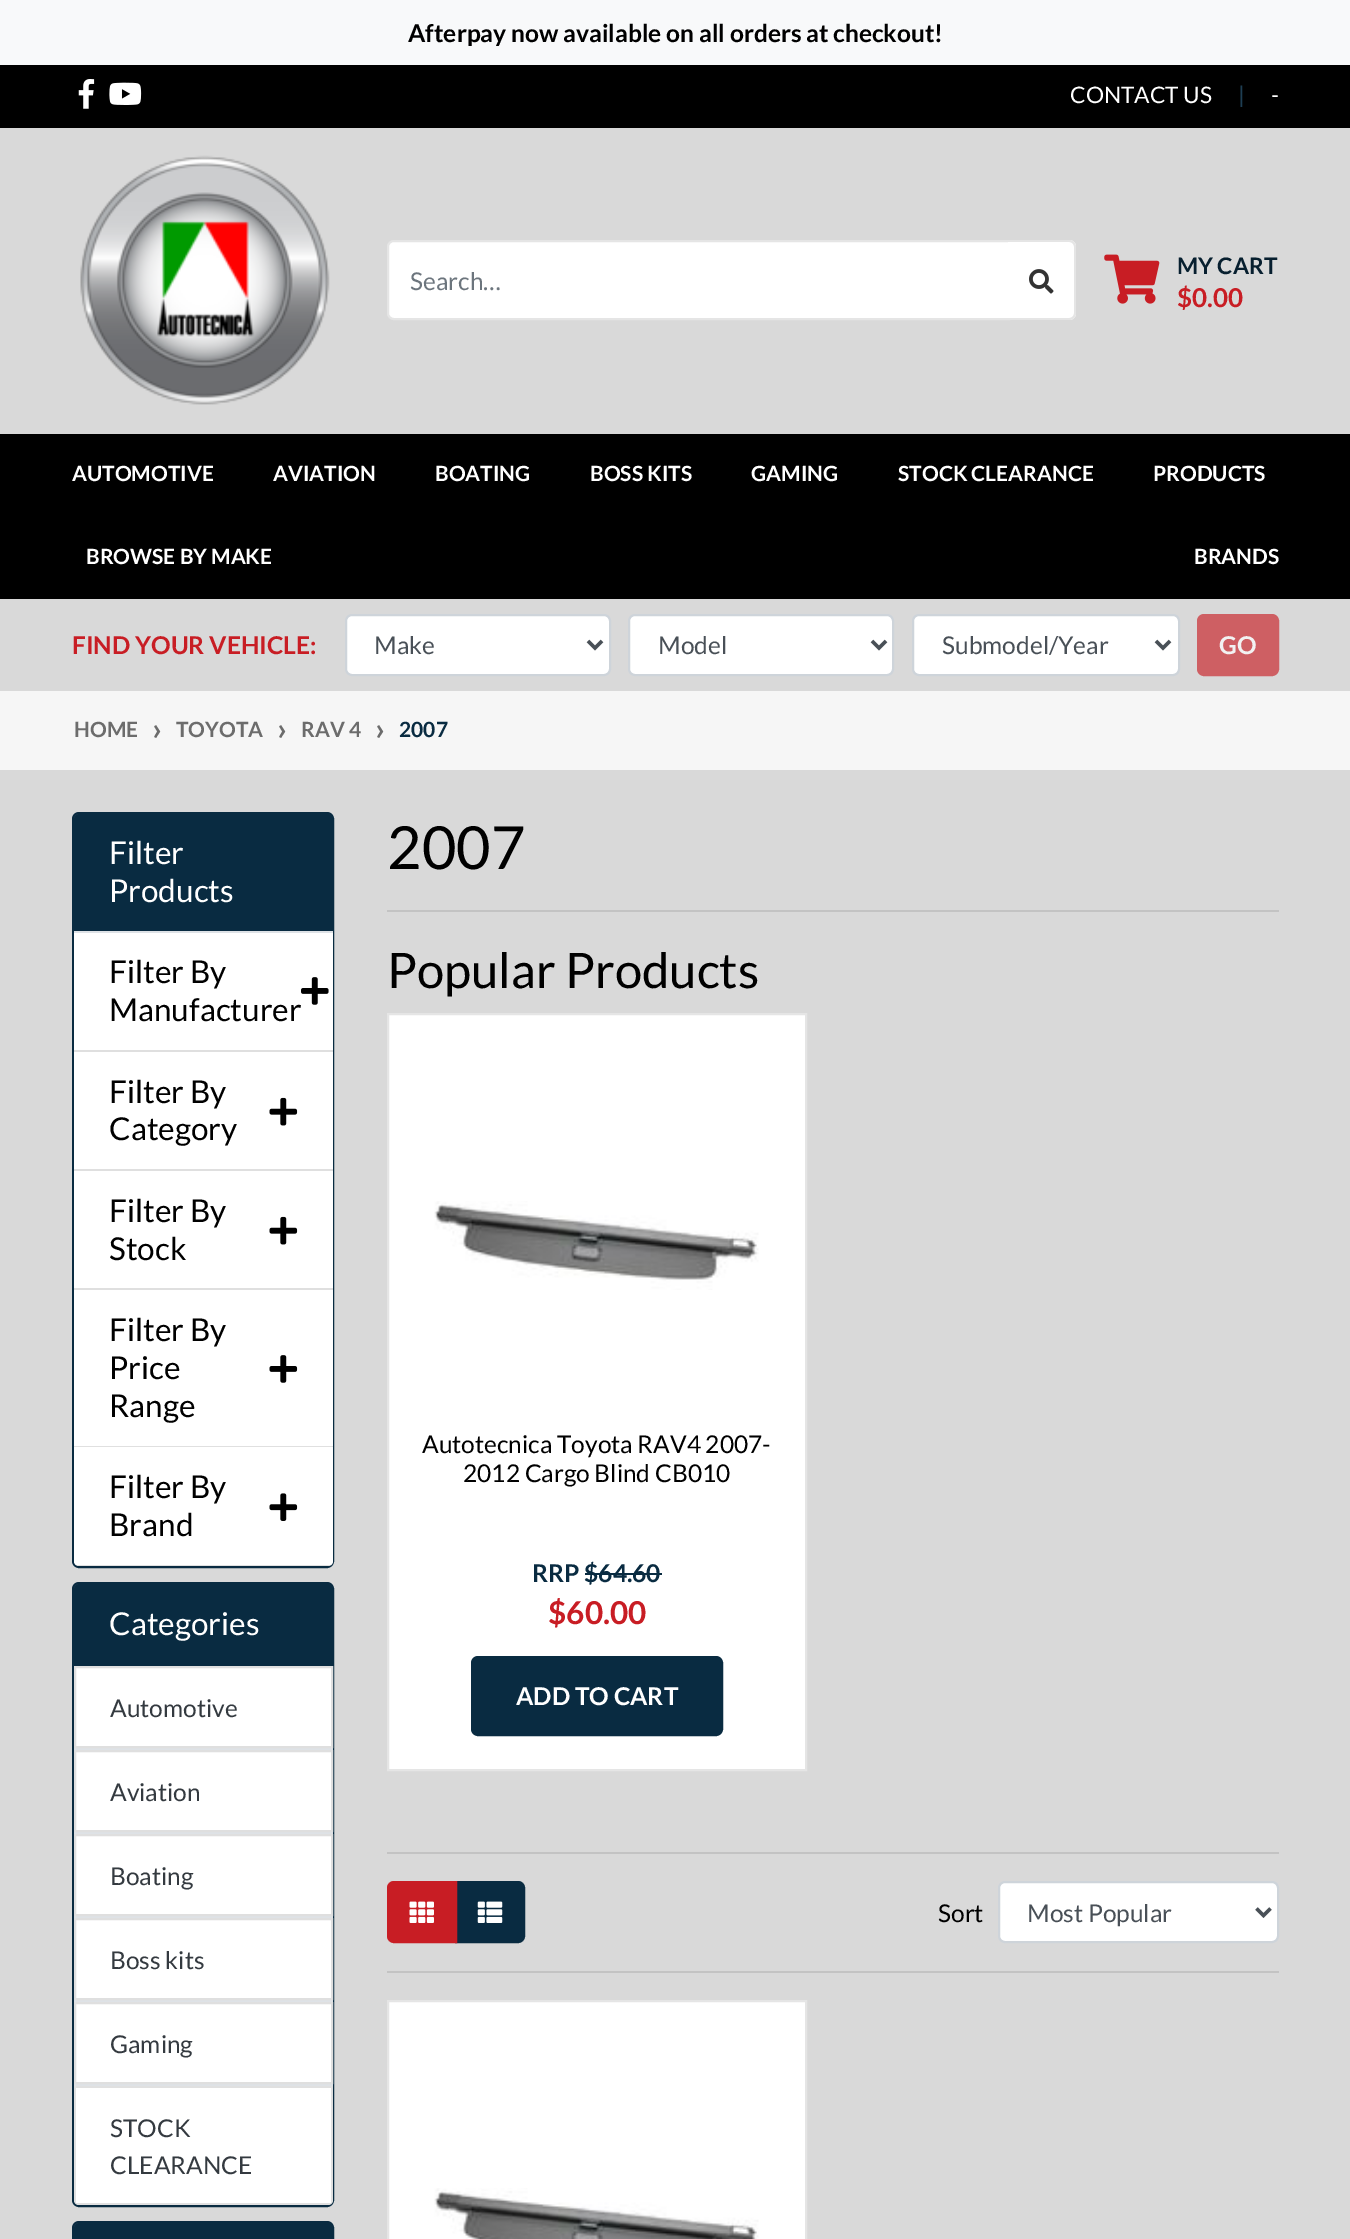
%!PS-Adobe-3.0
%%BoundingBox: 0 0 1350 2239
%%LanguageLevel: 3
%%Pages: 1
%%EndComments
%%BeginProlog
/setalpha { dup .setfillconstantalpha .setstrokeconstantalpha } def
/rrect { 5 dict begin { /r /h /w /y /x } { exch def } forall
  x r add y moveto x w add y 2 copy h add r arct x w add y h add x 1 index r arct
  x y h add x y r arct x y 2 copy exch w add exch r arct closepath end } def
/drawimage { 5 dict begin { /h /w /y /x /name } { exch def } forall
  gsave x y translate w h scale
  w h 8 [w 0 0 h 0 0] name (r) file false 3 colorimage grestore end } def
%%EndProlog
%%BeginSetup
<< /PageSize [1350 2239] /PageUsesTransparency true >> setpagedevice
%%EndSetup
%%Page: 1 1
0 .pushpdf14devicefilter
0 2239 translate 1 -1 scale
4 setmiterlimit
0.851 setgray
0 0 1350 2239 rectfill
0.973 0.976 0.98 setrgbcolor
0 0 1350 65 rectfill
0 setgray
0 65 1350 63 rectfill
(images/1.raw) 78 79 17 30 drawimage
(images/2.raw) 109 82 33 23 drawimage
(images/3.raw) 80 155 250 250 drawimage
1 setgray
newpath 394 241 moveto 1009 241 lineto 1009 319 lineto 394 319 lineto 390.5 319 388 316.5 388 313 curveto 388 247 lineto 388 243.5 390.5 241 394 241 curveto closepath gsave fill grestore
0.898 setgray
2 setlinewidth
stroke
1 setgray
newpath 1008 240 moveto 1069 240 lineto 1073 240 1076 243 1076 247 curveto 1076 313 lineto 1076 317 1073 320 1069 320 curveto 1008 320 lineto closepath fill
0.898 setgray
newpath 1008 240 moveto 1069 240 lineto 1073 240 1076 243 1076 247 curveto 1076 313 lineto 1076 317 1073 320 1069 320 curveto 1008 320 lineto closepath 1008 242 moveto 1069 242 lineto 1072 242 1074 244 1074 247 curveto 1074 313 lineto 1074 316 1072 318 1069 318 curveto 1008 318 lineto closepath eofill
(images/4.raw) 1029 269 25 25 drawimage
(images/5.raw) 1104 254 56 50 drawimage
0 setgray
0 434 1350 165 rectfill
1 setgray
346 615 264 60 6 rrect gsave fill grestore
0.808 0.831 0.855 setrgbcolor
stroke
0.286 0.314 0.341 setrgbcolor
3.5 setlinewidth
newpath 588 641 moveto 595 648 lineto 602 641 lineto stroke
1 setgray
629 615 264 60 6 rrect gsave fill grestore
0.808 0.831 0.855 setrgbcolor
2 setlinewidth
stroke
0.286 0.314 0.341 setrgbcolor
3.5 setlinewidth
newpath 872 641 moveto 879 648 lineto 886 641 lineto stroke
1 setgray
913 615 266 60 6 rrect gsave fill grestore
0.808 0.831 0.855 setrgbcolor
2 setlinewidth
stroke
0.286 0.314 0.341 setrgbcolor
3.5 setlinewidth
newpath 1156 641 moveto 1163 648 lineto 1170 641 lineto stroke
0.808 0.373 0.388 setrgbcolor
1198 615 80 60 6 rrect gsave fill grestore
2 setlinewidth
stroke
0.965 setgray
0 691 1350 79 rectfill
0.035 0.169 0.255 setrgbcolor
73 813 260 754 6 rrect stroke
newpath 79 814 moveto 328 814 lineto 331 814 333 816 333 819 curveto 333 933 lineto 74 933 lineto 74 819 lineto 74 816 76 814 79 814 curveto closepath fill
0.871 0.886 0.902 setrgbcolor
74 931 259 2 rectfill
1 setgray
74 933 259 117 rectfill
0.875 setgray
74 1050 259 2 rectfill
(images/6.raw) 301 977 28 28 drawimage
1 setgray
74 1052 259 117 rectfill
0.875 setgray
74 1169 259 2 rectfill
(images/7.raw) 269 1097 29 29 drawimage
1 setgray
74 1171 259 117 rectfill
0.875 setgray
74 1288 259 2 rectfill
(images/7.raw) 269 1216 29 29 drawimage
1 setgray
74 1290 259 157 rectfill
0.12 setalpha
0 setgray
74 1446 259 1 rectfill
1 setalpha
(images/8.raw) 269 1355 29 28 drawimage
1 setgray
newpath 74 1447 moveto 333 1447 lineto 333 1561 lineto 333 1564 331 1566 328 1566 curveto 79 1566 lineto 76 1566 74 1564 74 1561 curveto closepath fill
gsave
74 814 259 752 5 rrect clip newpath
0.12 setalpha
0 setgray
74 1565 259 1 rectfill
grestore
(images/9.raw) 269 1493 29 28 drawimage
0.035 0.169 0.255 setrgbcolor
73 1583 260 623 6 rrect stroke
newpath 79 1584 moveto 328 1584 lineto 331 1584 333 1586 333 1589 curveto 333 1666 lineto 74 1666 lineto 74 1589 lineto 74 1586 76 1584 79 1584 curveto closepath fill
0.871 0.886 0.902 setrgbcolor
74 1748 259 2 rectfill
1 setgray
newpath 75 1667 moveto 332 1667 lineto 332 1747 lineto 75 1747 lineto closepath gsave fill grestore
0.875 setgray
stroke
0.871 0.886 0.902 setrgbcolor
74 1832 259 2 rectfill
1 setgray
newpath 75 1751 moveto 332 1751 lineto 332 1831 lineto 75 1831 lineto closepath gsave fill grestore
0.875 setgray
stroke
0.871 0.886 0.902 setrgbcolor
74 1916 259 2 rectfill
1 setgray
newpath 75 1835 moveto 332 1835 lineto 332 1915 lineto 75 1915 lineto closepath gsave fill grestore
0.875 setgray
stroke
0.871 0.886 0.902 setrgbcolor
74 2000 259 2 rectfill
1 setgray
newpath 75 1919 moveto 332 1919 lineto 332 1999 lineto 75 1999 lineto closepath gsave fill grestore
0.875 setgray
stroke
0.871 0.886 0.902 setrgbcolor
74 2084 259 2 rectfill
1 setgray
newpath 75 2003 moveto 332 2003 lineto 332 2083 lineto 75 2083 lineto closepath gsave fill grestore
0.875 setgray
stroke
1 setgray
newpath 74 2086 moveto 333 2086 lineto 333 2200 lineto 333 2203 331 2205 328 2205 curveto 79 2205 lineto 76 2205 74 2203 74 2200 curveto closepath fill
0.12 setalpha
0 setgray
newpath 74 2086 moveto 74 2200 lineto 74 2203 76 2205 79 2205 curveto 328 2205 lineto 331 2205 333 2203 333 2200 curveto 333 2086 lineto closepath 76 2088 moveto 76 2203 lineto 331 2203 lineto 331 2088 lineto closepath eofill
1 setalpha
0.035 0.169 0.255 setrgbcolor
73 2222 260 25 6 rrect stroke
newpath 79 2223 moveto 328 2223 lineto 331 2223 333 2225 333 2228 curveto 333 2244 lineto 74 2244 lineto 74 2228 lineto 74 2225 76 2223 79 2223 curveto closepath fill
0.765 setgray
387 910 892 2 rectfill
1 setgray
newpath 388 1014 moveto 806 1014 lineto 806 1770 lineto 388 1770 lineto closepath gsave fill grestore
0.898 setgray
stroke
(images/10.raw) 434 1201 325 89 drawimage
0.035 0.169 0.255 setrgbcolor
585 1573 77 2 rectfill
472 1657 250 78 6 rrect gsave fill grestore
stroke
0.765 setgray
387 1852 892 2 rectfill
0.035 0.169 0.255 setrgbcolor
newpath 456 1882 moveto 518 1882 lineto 521.5 1882 524 1884.5 524 1888 curveto 524 1936 lineto 524 1939.5 521.5 1942 518 1942 curveto 456 1942 lineto closepath gsave fill grestore
stroke
0.784 0.114 0.141 setrgbcolor
newpath 394 1882 moveto 456 1882 lineto 456 1942 lineto 394 1942 lineto 390.5 1942 388 1939.5 388 1936 curveto 388 1888 lineto 388 1884.5 390.5 1882 394 1882 curveto closepath gsave fill grestore
stroke
(images/11.raw) 409 1901 25 22 drawimage
(images/12.raw) 477 1901 26 22 drawimage
1 setgray
999 1882 279 60 6 rrect gsave fill grestore
0.808 0.831 0.855 setrgbcolor
stroke
0.286 0.314 0.341 setrgbcolor
3.5 setlinewidth
newpath 1256.5 1908.5 moveto 1263.5 1915.5 lineto 1270.5 1908.5 lineto stroke
0.765 setgray
387 1971 892 2 rectfill
1 setgray
newpath 388 2001 moveto 806 2001 lineto 806 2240 lineto 388 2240 lineto closepath gsave fill grestore
0.898 setgray
2 setlinewidth
stroke
(images/13.raw) 434 2188 325 51 drawimage
/Lato-Bold [24.5 0 0 -24.5 0 0] selectfont
0 setgray
408 42 moveto (Afterpay now available on all orders at checkout!) show
/Lato-Regular [22.75 0 0 -22.75 0 0] selectfont
1 setgray
1070 103 moveto (CONTACT US) show
0.118 0.243 0.325 setrgbcolor
1238 103 moveto (|) show
1 setgray
1271 103 moveto (-) show
/Lato-Regular [24.5 0 0 -24.5 0 0] selectfont
0.424 0.459 0.49 setrgbcolor
410 290 moveto (Search…) show
/Lato-Bold [22.75 0 0 -22.75 0 0] selectfont
0.027 0.122 0.184 setrgbcolor
1177 274 moveto (MY CART) show
/Lato-Bold [26 0 0 -26 0 0] selectfont
0.784 0.114 0.141 setrgbcolor
1177 307 moveto ($0.00) show
/Lato-Bold [21 0 0 -21 0 0] selectfont
1 setgray
72 481 moveto (AUTOMOTIVE) show
273 481 moveto (AVIATION) show
435 481 moveto (BOATING) show
590 481 moveto (BOSS KITS) show
751 481 moveto (GAMING) show
898 481 moveto (STOCK CLEARANCE) show
1153 481 moveto (PRODUCTS) show
86 564 moveto (BROWSE BY MAKE) show
1194 564 moveto (BRANDS) show
/Lato-Bold [24.5 0 0 -24.5 0 0] selectfont
0.784 0.114 0.141 setrgbcolor
72 654 moveto (FIND YOUR VEHICLE:) show
/Lato-Regular [24.5 0 0 -24.5 0 0] selectfont
0.286 0.314 0.341 setrgbcolor
374 654 moveto (Make) show
658 654 moveto (Model) show
942 654 moveto (Submodel/Year) show
/Lato-Bold [24.5 0 0 -24.5 0 0] selectfont
0.949 setgray
1219 654 moveto (GO) show
/Lato-Bold [21 0 0 -21 0 0] selectfont
0.424 setgray
74 737 moveto (HOME) show
/Lato-Bold [31.5 0 0 -31.5 0 0] selectfont
152 740 moveto (›) show
/Lato-Bold [21 0 0 -21 0 0] selectfont
176 737 moveto (TOYOTA) show
/Lato-Bold [31.5 0 0 -31.5 0 0] selectfont
277 740 moveto (›) show
/Lato-Bold [21 0 0 -21 0 0] selectfont
301 737 moveto (RAV 4) show
/Lato-Bold [31.5 0 0 -31.5 0 0] selectfont
375 740 moveto (›) show
/Lato-Bold [21 0 0 -21 0 0] selectfont
0.035 0.169 0.255 setrgbcolor
399 737 moveto (2007) show
/Lato-Regular [31.5 0 0 -31.5 0 0] selectfont
1 setgray
109 864 moveto (Filter) show
109 902 moveto (Products) show
0 setgray
109 983 moveto (Filter By) show
109 1021 moveto (Manufacturer) show
109 1103 moveto (Filter By) show
109 1140 moveto (Category) show
109 1222 moveto (Filter By) show
109 1260 moveto (Stock) show
109 1341 moveto (Filter By) show
109 1379 moveto (Price) show
109 1417 moveto (Range) show
109 1498 moveto (Filter By) show
109 1536 moveto (Brand) show
1 setgray
109 1635 moveto (Categories) show
/Lato-Regular [24.5 0 0 -24.5 0 0] selectfont
0.204 0.227 0.251 setrgbcolor
110 1717 moveto (Automotive) show
110 1801 moveto (Aviation) show
110 1885 moveto (Boating) show
110 1969 moveto (Boss kits) show
110 2053 moveto (Gaming) show
110 2137 moveto (STOCK) show
110 2174 moveto (CLEARANCE) show
/Lato-Regular [59.5 0 0 -59.5 0 0] selectfont
0 setgray
387 869 moveto (2007) show
/Lato-Regular [49 0 0 -49 0 0] selectfont
387 988 moveto (Popular Products) show
/Lato-Regular [24.5 0 0 -24.5 0 0] selectfont
422 1453 moveto (Autotecnica Toyota RAV4 2007-) show
463 1482 moveto (2012 Cargo Blind CB010) show
/Lato-Bold [24.5 0 0 -24.5 0 0] selectfont
0.035 0.169 0.255 setrgbcolor
532 1582 moveto (RRP $64.60) show
/Lato-Bold [31.5 0 0 -31.5 0 0] selectfont
0.784 0.114 0.141 setrgbcolor
548 1624 moveto ($60.00) show
/Lato-Bold [24.5 0 0 -24.5 0 0] selectfont
1 setgray
516 1705 moveto (ADD TO CART) show
/Lato-Regular [24.5 0 0 -24.5 0 0] selectfont
0 setgray
938 1922 moveto (Sort) show
0.286 0.314 0.341 setrgbcolor
1027 1922 moveto (Most Popular) show
.poppdf14devicefilter showpage
%%EOF
